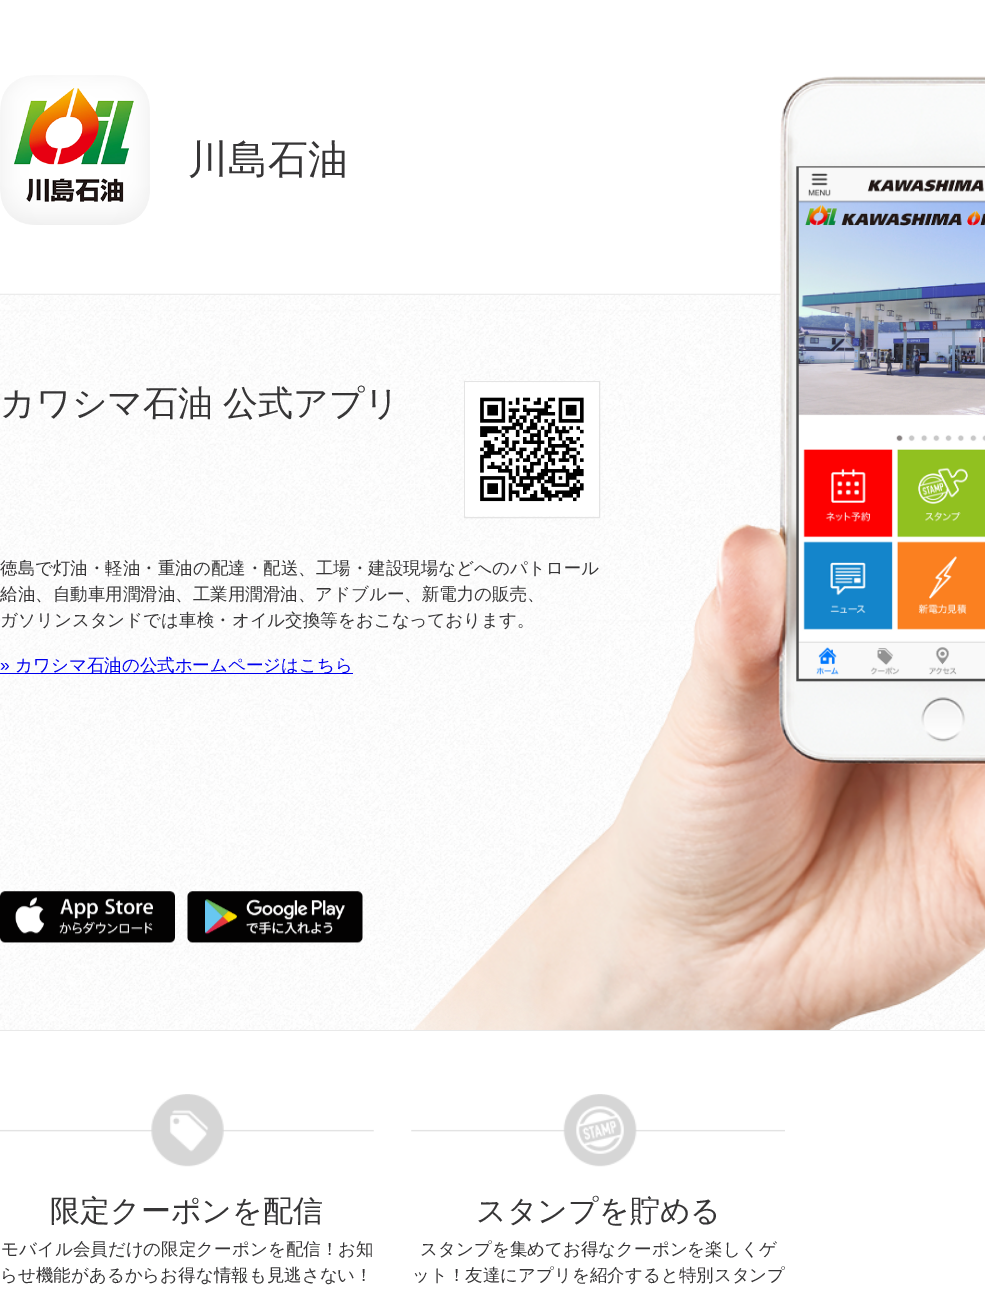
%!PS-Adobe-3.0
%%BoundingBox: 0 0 985 1293
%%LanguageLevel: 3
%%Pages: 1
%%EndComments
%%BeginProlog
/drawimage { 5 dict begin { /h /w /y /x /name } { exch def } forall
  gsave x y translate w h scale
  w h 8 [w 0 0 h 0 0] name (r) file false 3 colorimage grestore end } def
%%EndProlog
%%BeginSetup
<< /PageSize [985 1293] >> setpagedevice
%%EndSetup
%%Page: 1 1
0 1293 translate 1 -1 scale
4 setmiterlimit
1 setgray
0 0 985 1293 rectfill
(images/1.raw) 0 295 985 735 drawimage
(images/2.raw) 0 0 985 295 drawimage
(images/3.raw) 0 75 150 150 drawimage
0 0 0.933 setrgbcolor
0 673 353 1 rectfill
(images/7.raw) 0 891 175 52 drawimage
(images/8.raw) 187 891 176 52 drawimage
0.914 setgray
0 1030 985 1 rectfill
(images/9.raw) 0 1094 374 73 drawimage
(images/10.raw) 411 1094 374 73 drawimage
/WenQuanYiZenHei-Medium [40 0 0 -40 0 0] selectfont
0.212 0.208 0.212 setrgbcolor
188 173 moveto (川島石油) show
/WenQuanYiZenHei-Medium [35 0 0 -35 0 0] selectfont
0 415 moveto -1 0 32 (カワシマ石油 公式アプリ) widthshow
/WenQuanYiZenHei-Medium [17.5 0 0 -17.5 0 0] selectfont
0 574 moveto (徳島で灯油・軽油・重油の配達・配送、工場・建設現場などへのパトロール) show
0 600 moveto (給油、自動車用潤滑油、工業用潤滑油、アドブルー、新電力の販売、) show
0 626 moveto (ガソリンスタンドでは車検・オイル交換等をおこなっております。) show
(images/4.raw) 413 76 572 954 drawimage
(images/6.raw) 798 167 187 512 drawimage
0.894 setgray
464.5 381.5 135 136 rectstroke
(images/5.raw) 465 382 134 134 drawimage
/LiberationSans-Regular [17.5 0 0 -17.5 0 0] selectfont
0 0 0.933 setrgbcolor
0 671 moveto (») show
/WenQuanYiZenHei-Medium [17.5 0 0 -17.5 0 0] selectfont
15 671 moveto (カワシマ石油の公式ホームページはこちら) show
/WenQuanYiZenHei-Medium [30 0 0 -30 0 0] selectfont
0.212 0.208 0.212 setrgbcolor
50 1221 moveto (限定クーポンを配信) show
/WenQuanYiZenHei-Medium [17.5 0 0 -17.5 0 0] selectfont
1 1255 moveto (モバイル会員だけの限定クーポンを配信！お知) show
0 1281 moveto (らせ機能があるからお得な情報も見逃さない！) show
/WenQuanYiZenHei-Medium [30 0 0 -30 0 0] selectfont
476 1221 moveto (スタンプを貯める) show
/WenQuanYiZenHei-Medium [17.5 0 0 -17.5 0 0] selectfont
420 1255 moveto (スタンプを集めてお得なクーポンを楽しくゲ) show
412 1281 moveto (ット！友達にアプリを紹介すると特別スタンプ) show
showpage
%%EOF
